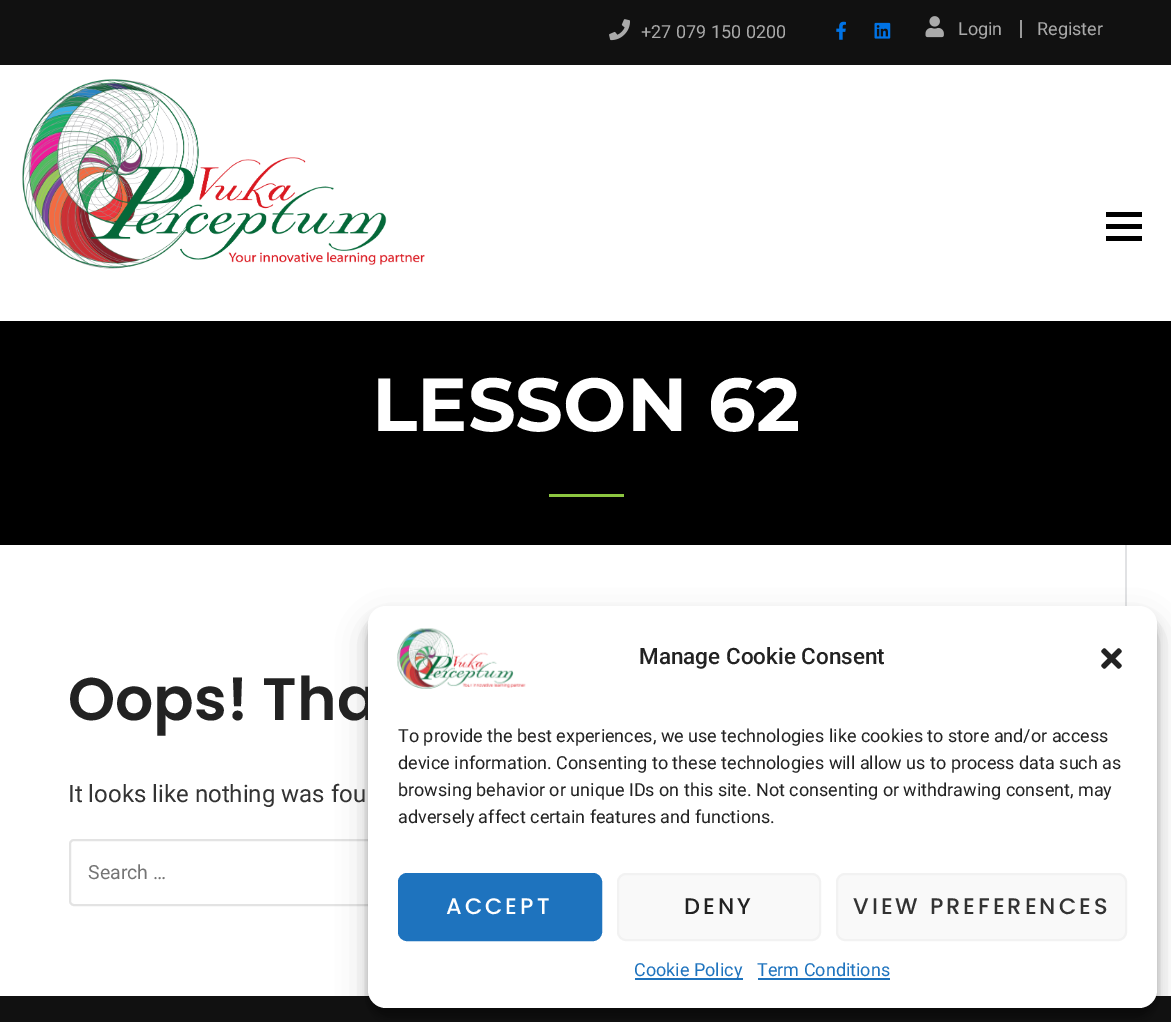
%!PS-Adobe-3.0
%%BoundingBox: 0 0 1171 1022
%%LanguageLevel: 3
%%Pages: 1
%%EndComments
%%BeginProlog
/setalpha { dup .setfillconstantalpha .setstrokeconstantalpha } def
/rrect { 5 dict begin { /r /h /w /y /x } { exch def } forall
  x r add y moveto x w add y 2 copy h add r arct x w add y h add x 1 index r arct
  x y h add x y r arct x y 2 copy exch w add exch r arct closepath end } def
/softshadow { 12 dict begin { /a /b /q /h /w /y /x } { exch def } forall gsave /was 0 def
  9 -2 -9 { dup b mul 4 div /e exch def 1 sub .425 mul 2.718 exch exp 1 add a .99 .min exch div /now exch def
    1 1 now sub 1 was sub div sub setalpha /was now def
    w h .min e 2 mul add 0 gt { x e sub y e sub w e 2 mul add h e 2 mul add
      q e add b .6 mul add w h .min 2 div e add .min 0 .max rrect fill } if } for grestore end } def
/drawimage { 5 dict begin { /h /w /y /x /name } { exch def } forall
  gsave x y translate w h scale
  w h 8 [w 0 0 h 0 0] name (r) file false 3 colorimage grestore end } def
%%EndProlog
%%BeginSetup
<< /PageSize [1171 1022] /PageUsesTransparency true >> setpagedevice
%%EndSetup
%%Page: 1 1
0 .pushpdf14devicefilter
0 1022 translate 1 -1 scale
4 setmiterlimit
1 setgray
0 0 1171 1022 rectfill
0.067 setgray
0 0 1171 65 rectfill
(images/1.raw) 609 19 21 22 drawimage
(images/2.raw) 836 21 10 19 drawimage
(images/3.raw) 874 22 17 17 drawimage
(images/4.raw) 925 16 19 22 drawimage
0.604 setgray
1020 20 2 18 rectfill
(images/5.raw) 22 79 403 190 drawimage
0 setgray
1106 224 36 5 rectfill
1106 212 36 5 rectfill
1106 236 36 5 rectfill
0 321 1171 224 rectfill
0.549 0.776 0.251 setrgbcolor
549 494 75 3 rectfill
0.882 0.886 0.894 setrgbcolor
1125 545 2 61 rectfill
0.89 setgray
2 setlinewidth
70 840 1017 65 4 rrect stroke
0.067 setgray
0 996 1171 26 rectfill
0 setgray
368 615 789 402 18 4.5 0.23 softshadow
368 621 789 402 18 15 0.19 softshadow
/Roboto-Regular [18 0 0 -18 0 0] selectfont
0.667 setgray
641 38 moveto (+27 079 150 0200) show
958 35 moveto (Login) show
1037 35 moveto (Register) show
/Montserrat-Bold [75 0 0 -75 0 0] selectfont
1 setgray
372 431 moveto (LESSON 62) show
/Poppins-SemiBold [60 0 0 -60 0 0] selectfont
0.133 setgray
68 720 moveto (Oops! Tha) show
/Roboto-Regular [24 0 0 -24 0 0] selectfont
0.2 setgray
68 802 moveto (It looks like nothing was fou) show
/Roboto-Regular [19.5 0 0 -19.5 0 0] selectfont
0.459 setgray
88 879 moveto (Search …) show
1 setgray
368 606 789 402 18 rrect fill
(images/6.raw) 397 628 129 61 drawimage
/Roboto-Medium [22.5 0 0 -22.5 0 0] selectfont
0.133 setgray
639 664 moveto (Manage Cookie Consent) show
(images/7.raw) 1101 648 21 21 drawimage
/Roboto-Regular [18 0 0 -18 0 0] selectfont
398 742 moveto (To provide the best experiences, we use technologies like cookies to store and/or access) show
398 769 moveto (device information. Consenting to these technologies will allow us to process data such as) show
398 796 moveto (browsing behavior or unique IDs on this site. Not consenting or withdrawing consent, may) show
398 823 moveto (adversely affect certain features and functions.) show
0.118 0.451 0.745 setrgbcolor
399 874 202 66 8 rrect gsave fill grestore
stroke
/Poppins-Medium [22.5 0 0 -22.5 0 0] selectfont
1 setgray
446 914 moveto 3 0 (ACCEPT) ashow
0.976 setgray
618 874 202 66 8 rrect gsave fill grestore
0.949 setgray
stroke
0.133 setgray
684 914 moveto 3 0 (DENY) ashow
0.976 setgray
837 874 289 66 8 rrect gsave fill grestore
0.949 setgray
stroke
0.2 setgray
853 914 moveto 3 0 (VIEW PREFERENCES) ashow
0.118 0.451 0.745 setrgbcolor
635 978 108 2 rectfill
/Roboto-Regular [18 0 0 -18 0 0] selectfont
634 976 moveto (Cookie Policy) show
757 976 moveto (Term Conditions) show
758 978 132 2 rectfill
.poppdf14devicefilter showpage
%%EOF
